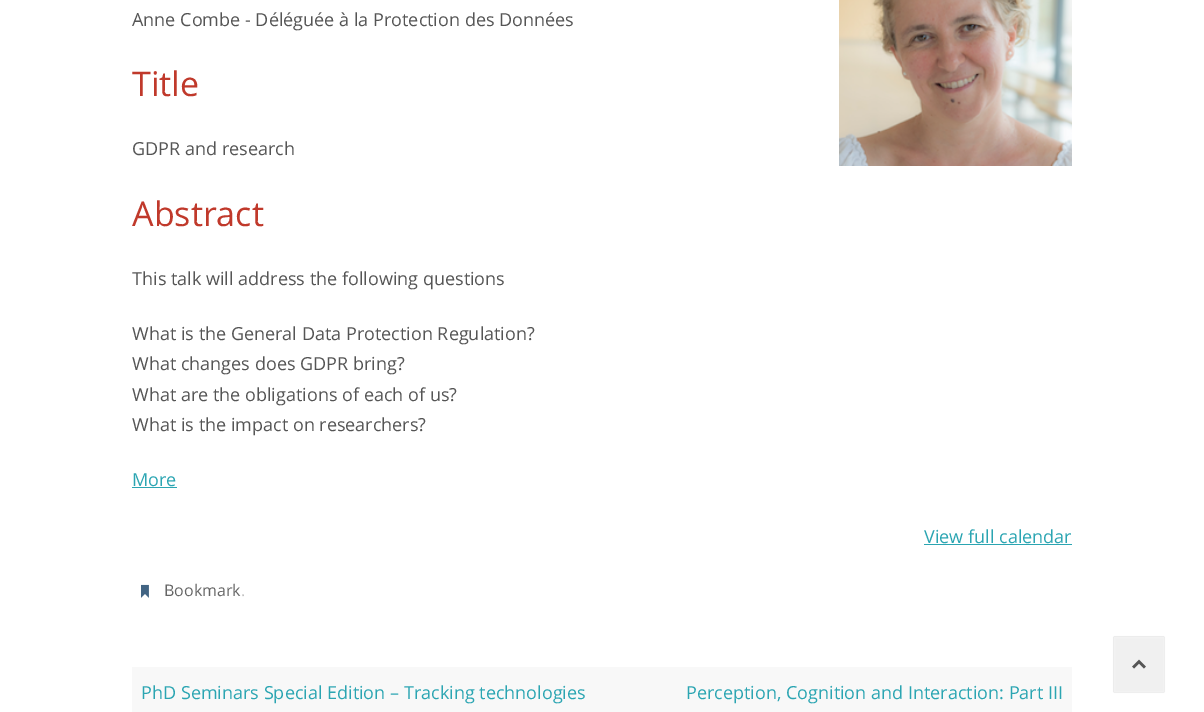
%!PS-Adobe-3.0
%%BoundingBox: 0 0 1204 712
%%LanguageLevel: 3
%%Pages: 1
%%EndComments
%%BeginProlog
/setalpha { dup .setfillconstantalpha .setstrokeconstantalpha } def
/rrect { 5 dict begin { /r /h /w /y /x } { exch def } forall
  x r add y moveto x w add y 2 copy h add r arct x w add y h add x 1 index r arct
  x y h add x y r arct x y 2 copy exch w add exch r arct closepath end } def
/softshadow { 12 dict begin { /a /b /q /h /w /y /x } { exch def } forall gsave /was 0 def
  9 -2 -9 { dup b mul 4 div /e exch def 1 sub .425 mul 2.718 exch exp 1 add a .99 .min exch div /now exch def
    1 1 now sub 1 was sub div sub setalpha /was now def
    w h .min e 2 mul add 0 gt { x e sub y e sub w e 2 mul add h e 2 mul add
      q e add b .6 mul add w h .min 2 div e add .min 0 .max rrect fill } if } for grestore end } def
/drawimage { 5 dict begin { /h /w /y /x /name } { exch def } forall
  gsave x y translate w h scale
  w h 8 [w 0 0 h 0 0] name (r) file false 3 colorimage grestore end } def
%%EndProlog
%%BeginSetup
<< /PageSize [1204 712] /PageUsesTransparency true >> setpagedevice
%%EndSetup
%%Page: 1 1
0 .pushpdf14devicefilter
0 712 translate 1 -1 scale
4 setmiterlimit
1 setgray
0 0 1204 712 rectfill
(images/1.raw) 839 0 233 166 drawimage
0.169 0.647 0.698 setrgbcolor
132 487 45 1 rectfill
924 544 148 1 rectfill
(images/2.raw) 141 584 8 14 drawimage
0.973 setgray
132 667 940 45 rectfill
0 setgray
1114 637 50 55 0 0.5 0.28 softshadow
0.941 setgray
newpath 1114.5 637.5 moveto 1163.5 637.5 lineto 1163.5 691.5 lineto 1114.5 691.5 lineto closepath gsave fill grestore
0.949 setgray
stroke
(images/3.raw) 1132 659 14 10 drawimage
/OpenSans-Regular [18 0 0 -18 0 0] selectfont
0.333 setgray
132 26 moveto (Anne Combe - Déléguée à la Protection des Données) show
/OpenSans-Regular [34 0 0 -34 0 0] selectfont
0.753 0.224 0.169 setrgbcolor
132 96 moveto (Title) show
/OpenSans-Regular [18 0 0 -18 0 0] selectfont
0.333 setgray
132 155 moveto (GDPR and research) show
/OpenSans-Regular [34 0 0 -34 0 0] selectfont
0.753 0.224 0.169 setrgbcolor
132 226 moveto (Abstract) show
/OpenSans-Regular [18 0 0 -18 0 0] selectfont
0.333 setgray
132 285 moveto (This talk will address the following questions) show
132 340 moveto (What is the General Data Protection Regulation?) show
132 370 moveto (What changes does GDPR bring?) show
132 401 moveto (What are the obligations of each of us?) show
132 431 moveto (What is the impact on researchers?) show
0.169 0.647 0.698 setrgbcolor
132 486 moveto (More) show
924 543 moveto (View full calendar) show
/OpenSans-Regular [16 0 0 -16 0 0] selectfont
0.4 setgray
164 596 moveto (Bookmark) show
0.757 setgray
241 596 moveto (.) show
/OpenSans-Regular [18 0 0 -18 0 0] selectfont
0.169 0.647 0.698 setrgbcolor
141 699 moveto (PhD Seminars Special Edition – Tracking technologies) show
686 699 moveto (Perception, Cognition and Interaction: Part III) show
.poppdf14devicefilter showpage
%%EOF
